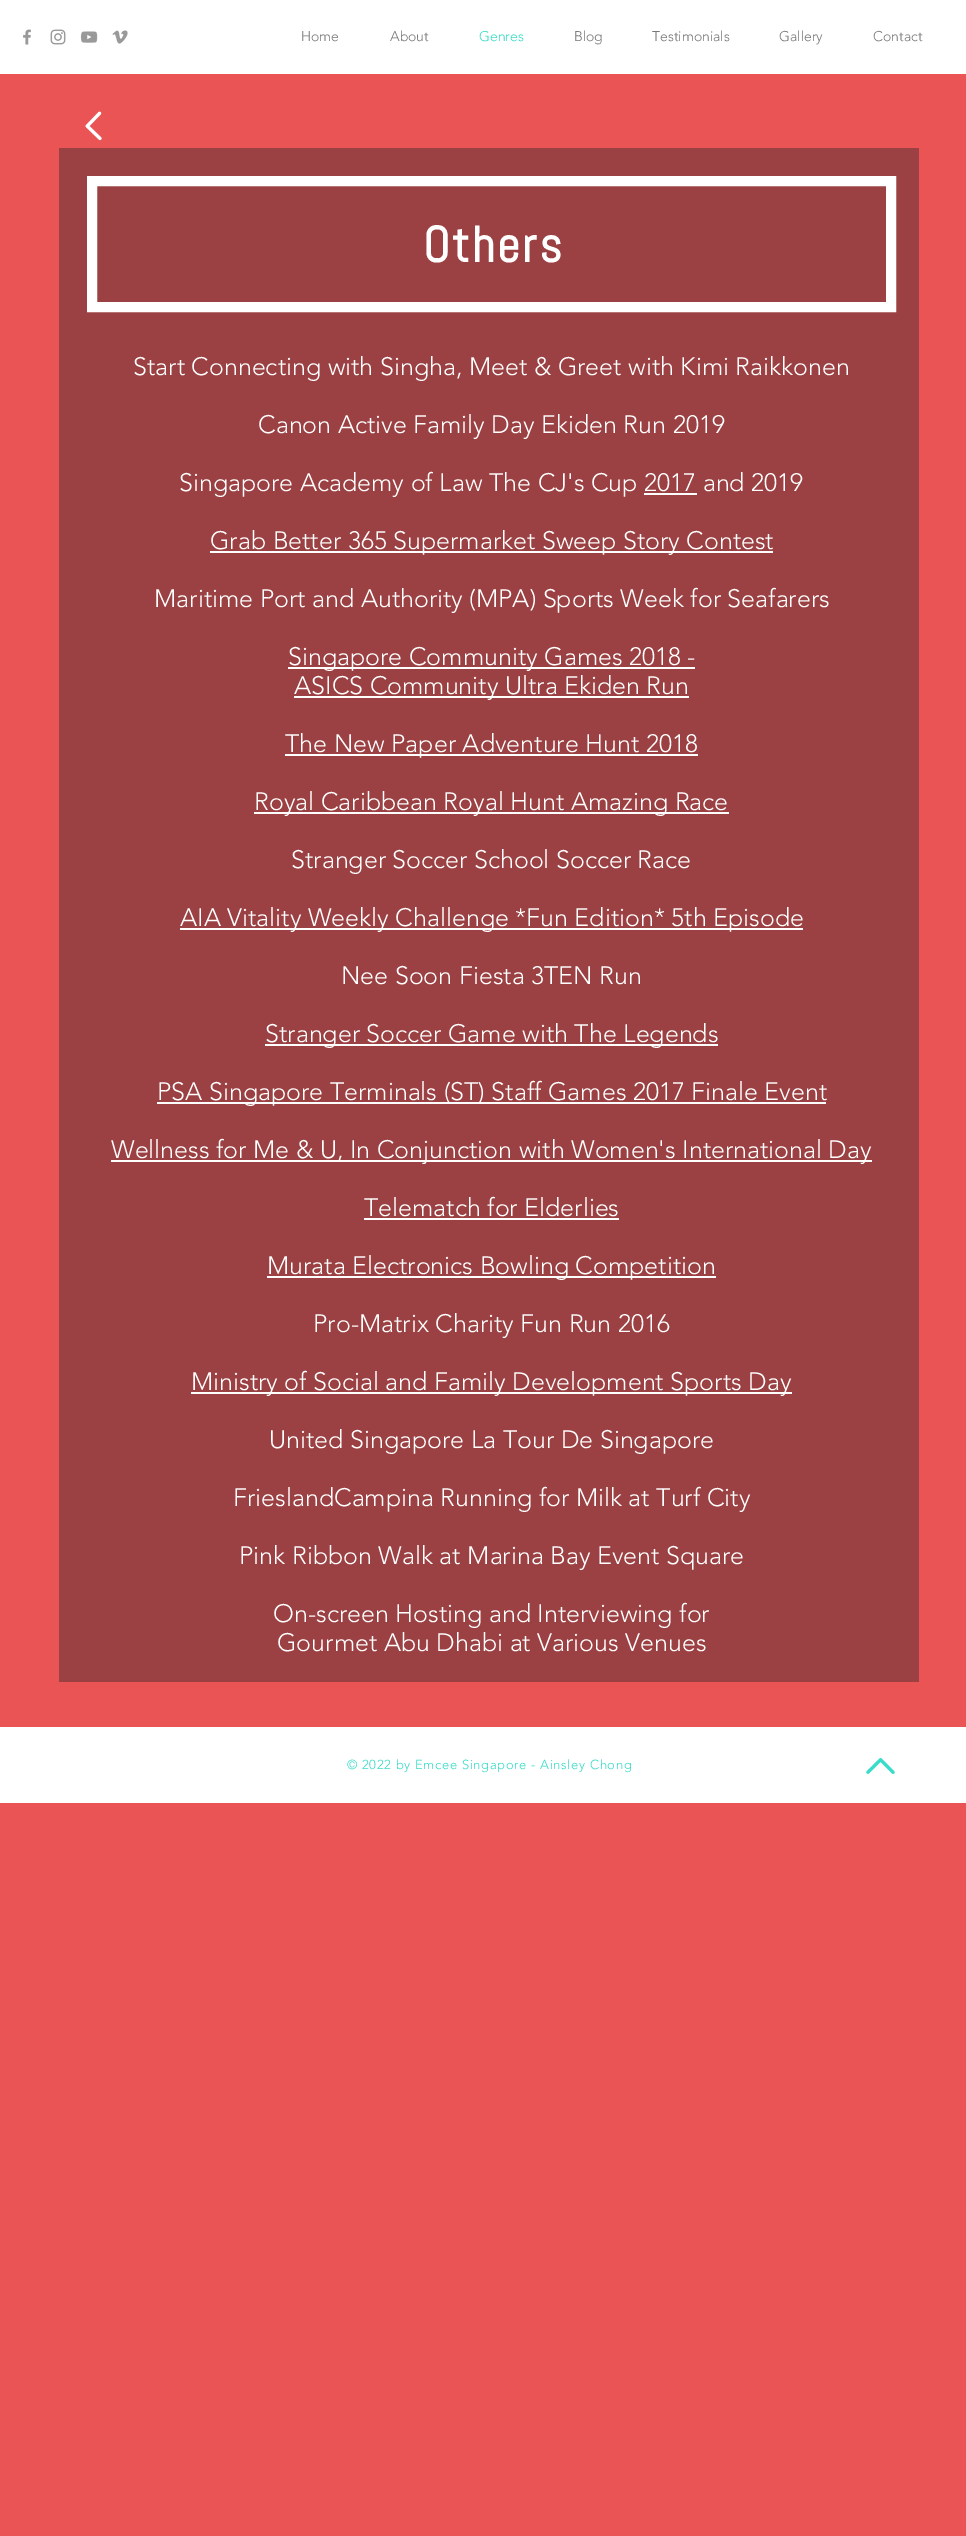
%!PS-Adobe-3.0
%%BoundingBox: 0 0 966 2536
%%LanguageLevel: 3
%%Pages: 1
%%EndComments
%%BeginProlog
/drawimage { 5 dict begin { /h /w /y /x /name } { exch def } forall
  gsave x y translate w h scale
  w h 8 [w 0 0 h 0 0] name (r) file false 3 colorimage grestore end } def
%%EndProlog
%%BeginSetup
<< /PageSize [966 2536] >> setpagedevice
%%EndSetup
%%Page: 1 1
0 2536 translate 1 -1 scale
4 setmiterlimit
0.918 0.329 0.333 setrgbcolor
0 0 966 2536 rectfill
1 setgray
0 0 966 74 rectfill
(images/1.raw) 23 29 8 16 drawimage
(images/2.raw) 50 29 16 16 drawimage
(images/3.raw) 80 31 18 12 drawimage
(images/4.raw) 112 30 16 14 drawimage
(images/5.raw) 85 111 17 30 drawimage
0.608 0.255 0.263 setrgbcolor
59 148 860 1534 rectfill
1 setgray
10 setlinewidth
92 181 799 126 rectstroke
644 493 53 2 rectfill
210 551 563 2 rectfill
288 667 407 2 rectfill
294 696 395 2 rectfill
285 754 413 2 rectfill
254 812 475 2 rectfill
180 928 623 2 rectfill
265 1044 453 2 rectfill
157 1102 669 2 rectfill
111 1160 761 2 rectfill
364 1218 255 2 rectfill
267 1276 449 2 rectfill
191 1392 601 2 rectfill
0 1727 966 76 rectfill
(images/6.raw) 866 1758 29 16 drawimage
/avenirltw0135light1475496-Light [14 0 0 -14 0 0] selectfont
0.471 0.471 0.467 setrgbcolor
301 41 moveto (Home) show
390 41 moveto (About) show
0.22 0.863 0.784 setrgbcolor
479 41 moveto (Genres) show
0.471 0.471 0.467 setrgbcolor
574 41 moveto (Blog) show
652 41 moveto (Testimonials) show
779 41 moveto (Gallery) show
873 41 moveto (Contact) show
/Abel-Bold [50 0 0 -50 0 0] selectfont
1 setgray
423 262 moveto 2.5 0 (Others) ashow
/avenirltw0135light1475496-Light [25 0 0 -25 0 0] selectfont
133 375 moveto (Start Connecting with Singha, Meet & Greet with Kimi Raikkonen) show
258 433 moveto (Canon Active Family Day Ekiden Run 2019) show
179 491 moveto (Singapore Academy of Law The CJ's Cup 2017 and 2019) show
210 549 moveto (Grab Better 365 Supermarket Sweep Story Contest) show
154 607 moveto (Maritime Port and Authority \(MPA\) Sports Week for Seafarers) show
288 665 moveto (Singapore Community Games 2018 -) show
294 694 moveto (ASICS Community Ultra Ekiden Run) show
285 752 moveto (The New Paper Adventure Hunt 2018) show
254 810 moveto (Royal Caribbean Royal Hunt Amazing Race) show
291 868 moveto (Stranger Soccer School Soccer Race) show
180 926 moveto (AIA Vitality Weekly Challenge *Fun Edition* 5th Episode) show
341 984 moveto (Nee Soon Fiesta 3TEN Run) show
265 1042 moveto (Stranger Soccer Game with The Legends) show
157 1100 moveto (PSA Singapore Terminals \(ST\) Staff Games 2017 Finale Event) show
111 1158 moveto (Wellness for Me & U, In Conjunction with Women's International Day) show
364 1216 moveto (Telematch for Elderlies) show
267 1274 moveto (Murata Electronics Bowling Competition) show
313 1332 moveto (Pro-Matrix Charity Fun Run 2016) show
191 1390 moveto (Ministry of Social and Family Development Sports Day) show
269 1448 moveto (United Singapore La Tour De Singapore) show
233 1506 moveto (FrieslandCampina Running for Milk at Turf City) show
239 1564 moveto (Pink Ribbon Walk at Marina Bay Event Square) show
273 1622 moveto (On-screen Hosting and Interviewing for) show
277 1651 moveto (Gourmet Abu Dhabi at Various Venues) show
/avenirltw0135light1475496-Light [13 0 0 -13 0 0] selectfont
0.22 0.863 0.784 setrgbcolor
347 1769 moveto 0.65 0 (© 2022 by Emcee Singapore - Ainsley Chong) ashow
showpage
%%EOF
